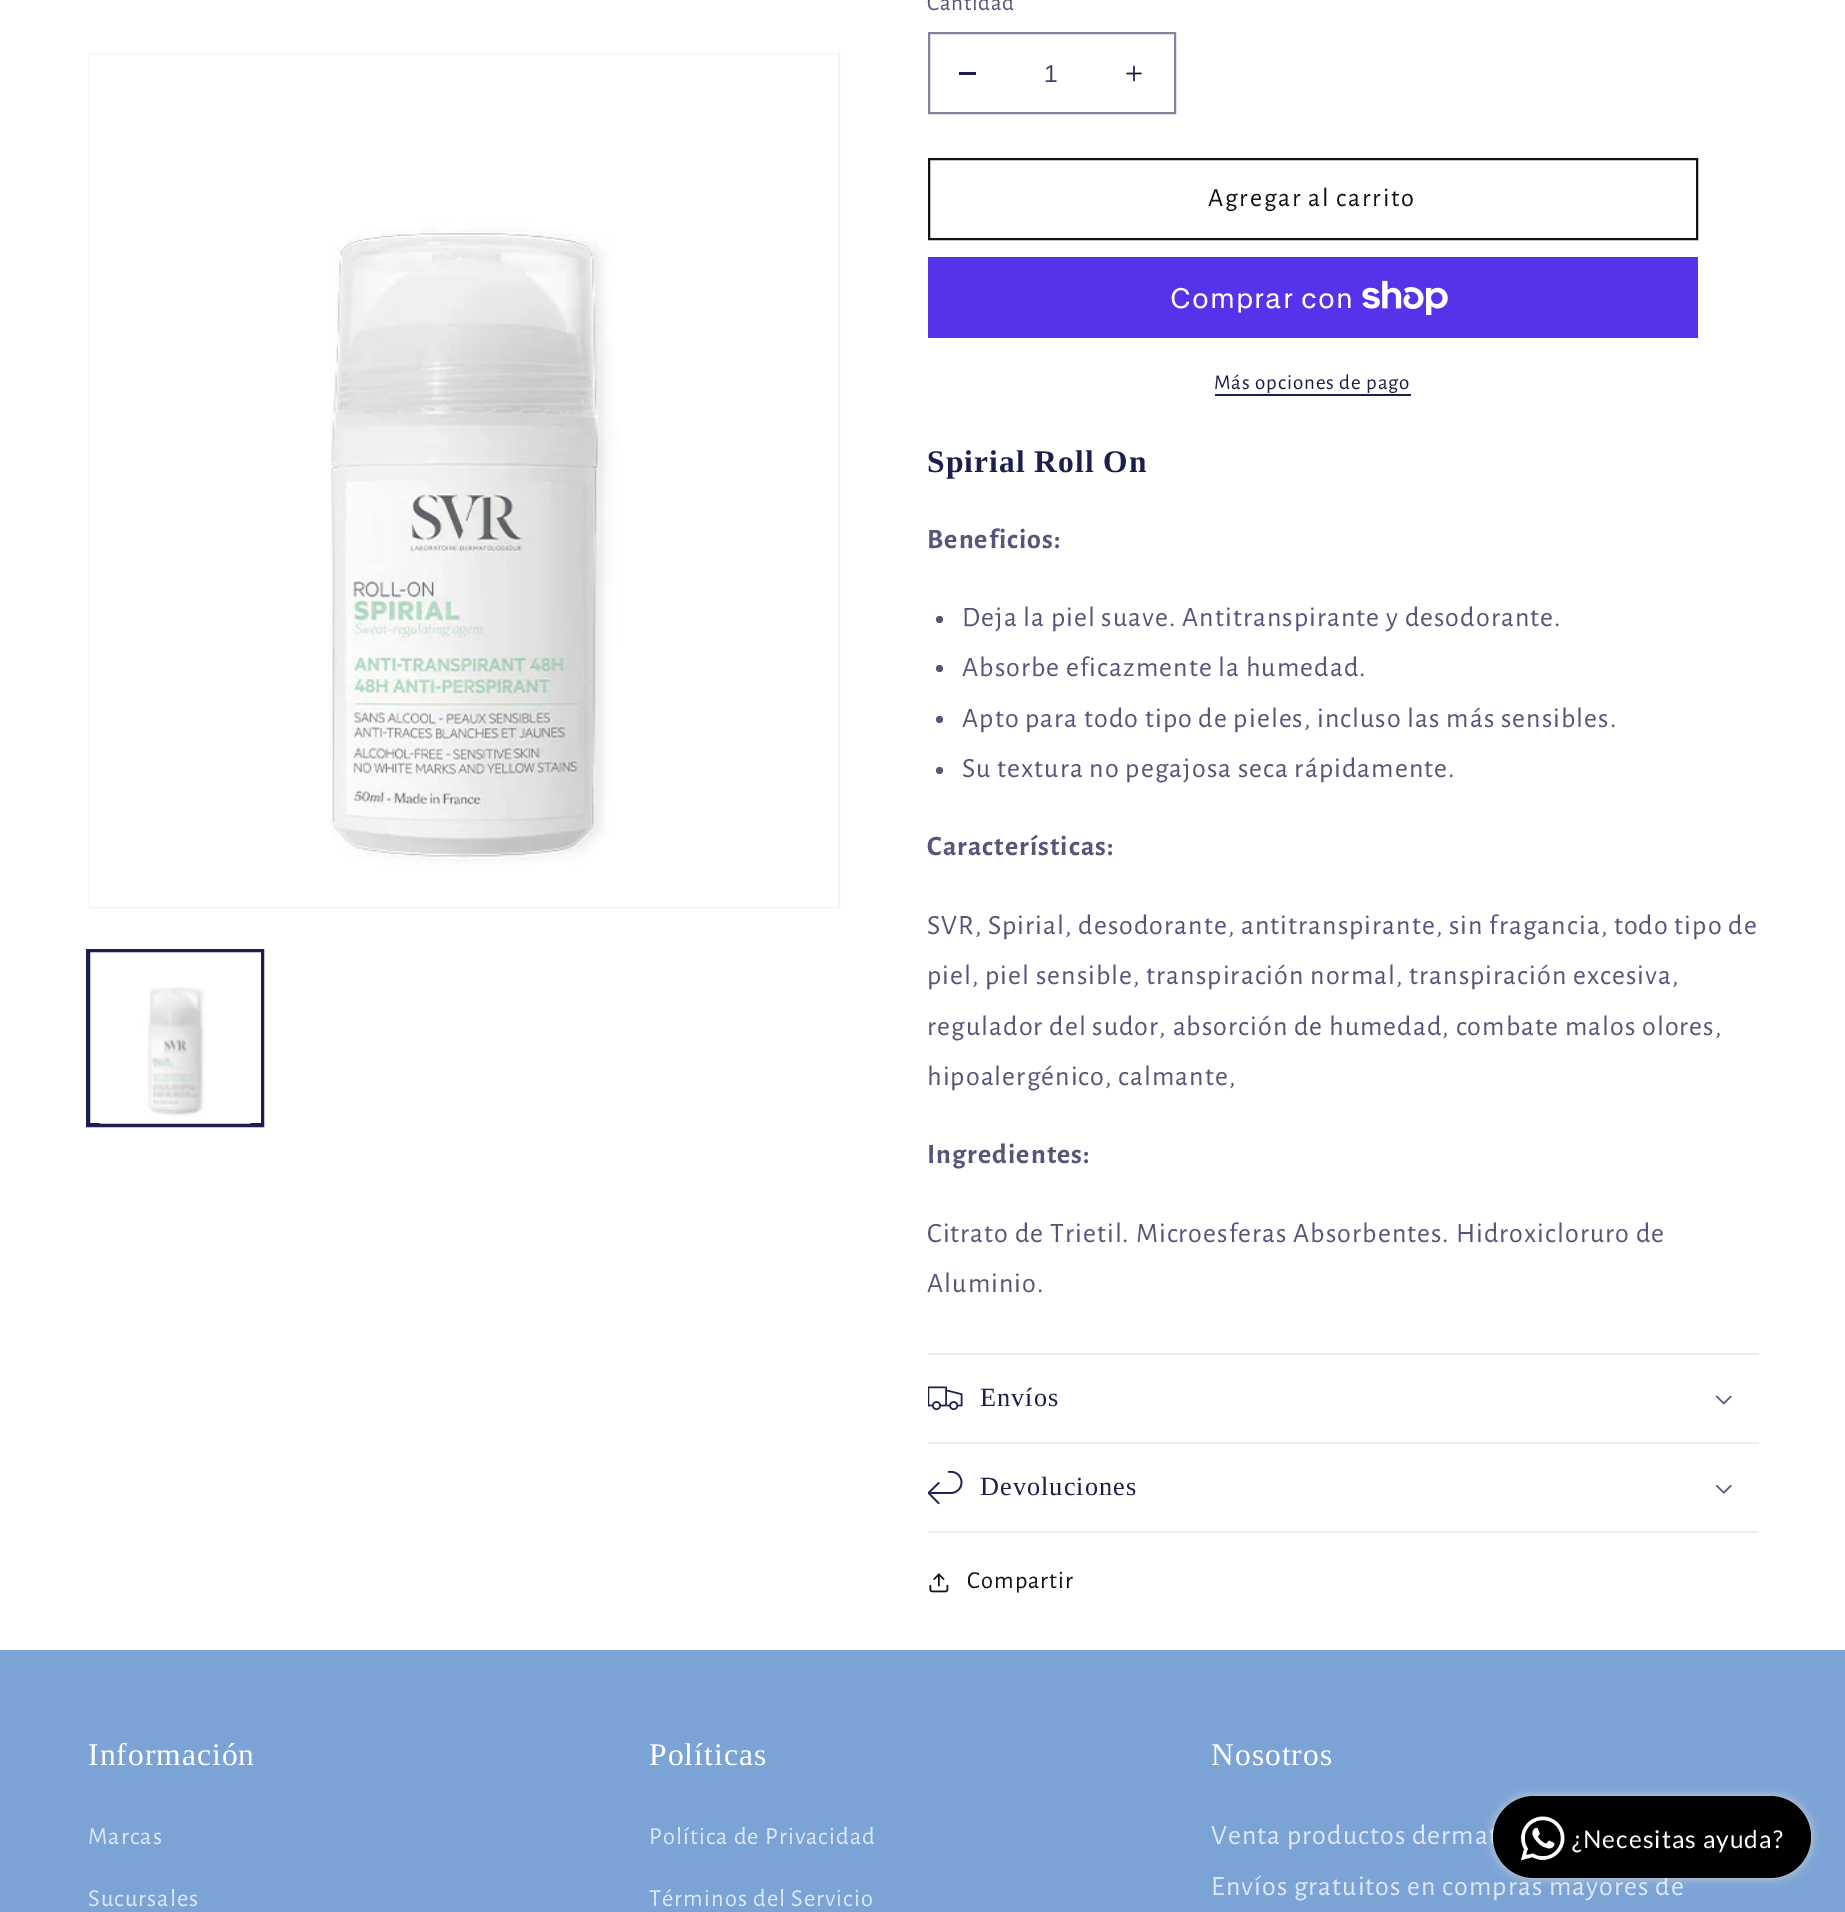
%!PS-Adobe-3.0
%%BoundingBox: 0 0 1845 1912
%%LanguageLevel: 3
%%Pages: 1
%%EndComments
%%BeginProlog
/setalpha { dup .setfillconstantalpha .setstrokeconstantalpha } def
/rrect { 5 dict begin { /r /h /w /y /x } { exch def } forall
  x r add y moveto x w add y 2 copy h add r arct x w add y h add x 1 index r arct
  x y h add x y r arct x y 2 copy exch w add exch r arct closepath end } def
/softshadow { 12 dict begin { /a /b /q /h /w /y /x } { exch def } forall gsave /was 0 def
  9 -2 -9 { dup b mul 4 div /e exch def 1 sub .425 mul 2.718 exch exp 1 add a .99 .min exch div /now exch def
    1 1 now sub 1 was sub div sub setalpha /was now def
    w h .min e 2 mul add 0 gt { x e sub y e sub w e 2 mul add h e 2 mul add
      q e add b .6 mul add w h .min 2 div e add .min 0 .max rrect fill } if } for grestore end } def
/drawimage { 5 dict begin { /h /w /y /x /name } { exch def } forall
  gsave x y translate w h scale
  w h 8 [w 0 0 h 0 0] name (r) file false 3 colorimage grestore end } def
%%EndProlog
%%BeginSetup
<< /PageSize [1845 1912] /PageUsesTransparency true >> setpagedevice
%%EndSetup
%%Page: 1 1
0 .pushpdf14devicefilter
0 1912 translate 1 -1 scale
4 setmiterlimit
1 setgray
0 0 1845 1912 rectfill
0.957 0.957 0.965 setrgbcolor
2 setlinewidth
89 54 750 853 rectstroke
(images/1.raw) 89 54 749 853 drawimage
0.11 0.118 0.302 setrgbcolor
87 950 176 176 rectstroke
89 951 173 173 rectstroke
(images/2.raw) 99 987 152 137 drawimage
959 72 17 3 rectfill
(images/3.raw) 1126 65 16 17 drawimage
0.51 0.514 0.616 setrgbcolor
929 33 246 80 rectstroke
0.071 setgray
929 159 768 80 rectstroke
0.329 0.2 0.922 setrgbcolor
928 257 770 81 rectfill
(images/4.raw) 1362 280 86 35 drawimage
0.11 0.118 0.302 setrgbcolor
1215 394 196 2 rectfill
0.333 0.337 0.478 setrgbcolor
newpath 939.5 619.5 3.5 0 360 arc closepath fill
newpath 939.5 668.5 3.5 0 360 arc closepath fill
newpath 939.5 719.5 3.5 0 360 arc closepath fill
newpath 939.5 770.5 3.5 0 360 arc closepath fill
0.929 0.929 0.945 setrgbcolor
928 1353 831 2 rectfill
928 1442 831 2 rectfill
(images/5.raw) 928 1386 35 25 drawimage
(images/6.raw) 1715 1395 17 10 drawimage
928 1531 831 2 rectfill
(images/7.raw) 928 1470 35 35 drawimage
(images/8.raw) 1715 1484 17 10 drawimage
(images/9.raw) 929 1573 20 20 drawimage
0.486 0.639 0.839 setrgbcolor
0 1650 1845 262 rectfill
0.827 setgray
1493 1796 318 82 41 4.5 1 softshadow
/AlegreyaSans-Regular [23 0 0 -23 0 0] selectfont
0.333 0.337 0.478 setrgbcolor
927 10 moveto 0.75 0 (Cantidad) ashow
/LiberationSans-Regular [24.5 0 0 -24.5 0 0] selectfont
0.243 0.251 0.408 setrgbcolor
1044 82 moveto (1) show
/AlegreyaSans-Regular [26.25 0 0 -26.25 0 0] selectfont
0.071 setgray
1208 206 moveto 1.75 0 (Agregar al carrito) ashow
/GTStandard-Regular [28 0 0 -28 0 0] selectfont
1 setgray
1170 308 moveto 1.05 0 (Comprar con) ashow
/AlegreyaSans-Regular [21 0 0 -21 0 0] selectfont
0.11 0.118 0.302 setrgbcolor
1214 389 moveto 0.9 0 (Más opciones de pago) ashow
/LiberationSerif-Bold [31.5 0 0 -31.5 0 0] selectfont
927 472 moveto 1.05 0 (Spirial Roll On) ashow
/AlegreyaSans-Bold [28 0 0 -28 0 0] selectfont
0.333 0.337 0.478 setrgbcolor
927 548 moveto 1.05 0 (Beneficios:) ashow
/AlegreyaSans-Regular [28 0 0 -28 0 0] selectfont
962 626 moveto 1.05 0 (Deja la piel suave. Antitranspirante y desodorante.) ashow
962 676 moveto 1.05 0 (Absorbe eficazmente la humedad.) ashow
962 727 moveto 1.05 0 (Apto para todo tipo de pieles, incluso las más sensibles.) ashow
962 777 moveto 1.05 0 (Su textura no pegajosa seca rápidamente.) ashow
/AlegreyaSans-Bold [28 0 0 -28 0 0] selectfont
927 855 moveto 1.05 0 (Características:) ashow
/AlegreyaSans-Regular [28 0 0 -28 0 0] selectfont
927 934 moveto 1.05 0 (SVR, Spirial, desodorante, antitranspirante, sin fragancia, todo tipo de) ashow
927 984 moveto 1.05 0 (piel, piel sensible, transpiración normal, transpiración excesiva,) ashow
927 1035 moveto 1.05 0 (regulador del sudor, absorción de humedad, combate malos olores,) ashow
927 1085 moveto 1.05 0 (hipoalergénico, calmante,) ashow
/AlegreyaSans-Bold [28 0 0 -28 0 0] selectfont
927 1163 moveto 1.05 0 (Ingredientes:) ashow
/AlegreyaSans-Regular [28 0 0 -28 0 0] selectfont
927 1242 moveto 1.05 0 (Citrato de Trietil. Microesferas Absorbentes. Hidroxicloruro de) ashow
927 1292 moveto 1.05 0 (Aluminio.) ashow
/LiberationSerif-Regular [26.25 0 0 -26.25 0 0] selectfont
0.11 0.118 0.302 setrgbcolor
980 1406 moveto 1.05 0 (Envíos) ashow
980 1495 moveto 1.05 0 (Devoluciones) ashow
/AlegreyaSans-Regular [24.5 0 0 -24.5 0 0] selectfont
0.071 setgray
967 1588 moveto 1.05 0 (Compartir) ashow
/LiberationSerif-Regular [31.5 0 0 -31.5 0 0] selectfont
1 setgray
88 1765 moveto 1.05 0 (Información) ashow
/AlegreyaSans-Regular [24.5 0 0 -24.5 0 0] selectfont
0.871 0.91 0.961 setrgbcolor
88 1844 moveto 1.05 0 (Marcas) ashow
88 1906 moveto 1.05 0 (Sucursales) ashow
/LiberationSerif-Regular [31.5 0 0 -31.5 0 0] selectfont
1 setgray
649 1765 moveto 1.05 0 (Políticas) ashow
/AlegreyaSans-Regular [24.5 0 0 -24.5 0 0] selectfont
0.871 0.91 0.961 setrgbcolor
649 1844 moveto 1.05 0 (Política de Privacidad) ashow
649 1906 moveto 1.05 0 (Términos del Servicio) ashow
/LiberationSerif-Regular [31.5 0 0 -31.5 0 0] selectfont
1 setgray
1211 1765 moveto 1.05 0 (Nosotros) ashow
/AlegreyaSans-Regular [28 0 0 -28 0 0] selectfont
0.871 0.91 0.961 setrgbcolor
1211 1844 moveto 1.05 0 (Venta productos dermat) ashow
1211 1895 moveto 1.05 0 (Envíos gratuitos en compras mayores de) ashow
0 setgray
1493 1796 318 82 41 rrect fill
(images/10.raw) 1520 1816 45 45 drawimage
/Lato-Regular [24.5 0 0 -24.5 0 0] selectfont
1 setgray
1572 1848 moveto 1.05 0 (¿Necesitas ayuda?) ashow
.poppdf14devicefilter showpage
%%EOF
